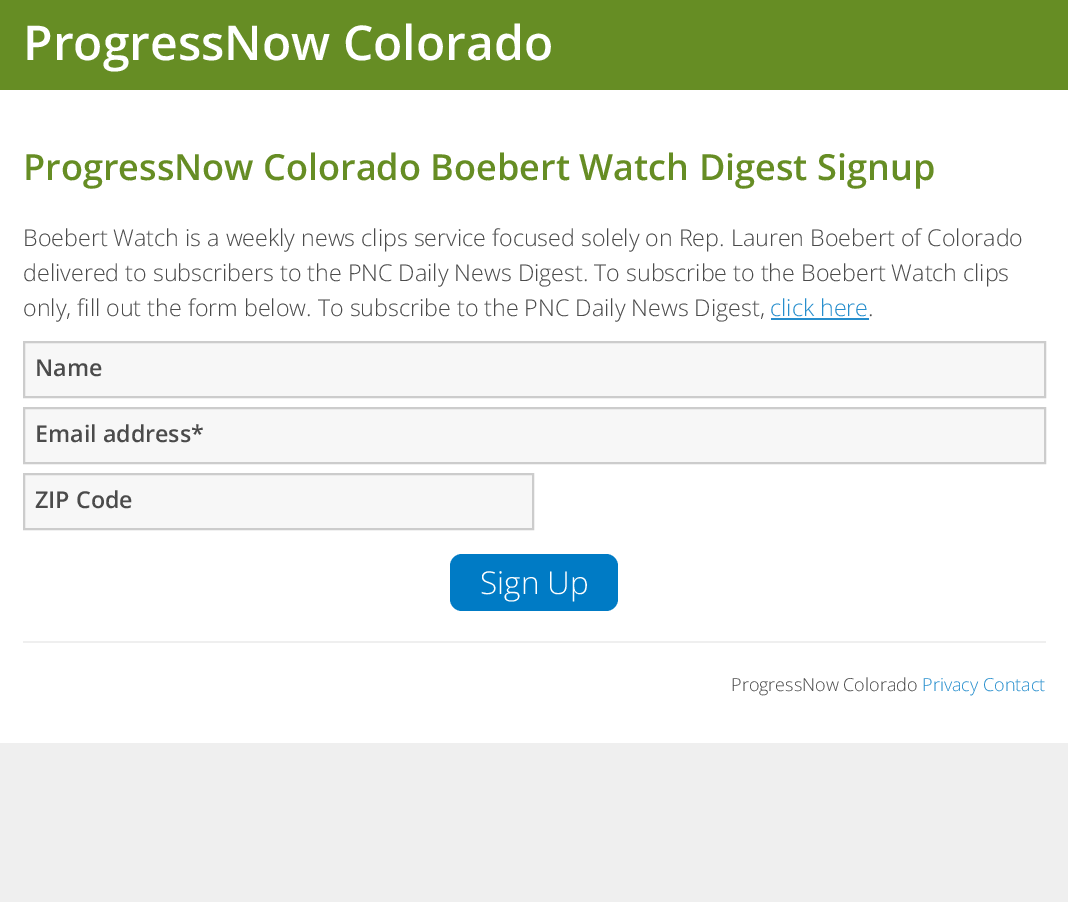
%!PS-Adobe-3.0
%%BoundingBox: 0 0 1068 902
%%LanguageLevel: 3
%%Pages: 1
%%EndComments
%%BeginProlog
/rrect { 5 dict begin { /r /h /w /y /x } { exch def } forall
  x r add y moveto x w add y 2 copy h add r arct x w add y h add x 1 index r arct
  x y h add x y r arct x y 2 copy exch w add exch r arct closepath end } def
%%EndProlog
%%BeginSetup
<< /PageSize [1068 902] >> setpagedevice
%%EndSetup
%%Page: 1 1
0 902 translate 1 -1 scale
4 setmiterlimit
0.937 setgray
0 0 1068 902 rectfill
0.4 0.553 0.141 setrgbcolor
0 0 1068 90 rectfill
1 setgray
0 90 1068 653 rectfill
0.149 0.557 0.804 setrgbcolor
771 318 98 2 rectfill
0.969 setgray
newpath 24 342 moveto 1045 342 lineto 1045 397 lineto 24 397 lineto closepath gsave fill grestore
0.8 setgray
2 setlinewidth
stroke
0.969 setgray
newpath 24 408 moveto 1045 408 lineto 1045 463 lineto 24 463 lineto closepath gsave fill grestore
0.8 setgray
stroke
0.969 setgray
newpath 24 474 moveto 533 474 lineto 533 529 lineto 24 529 lineto closepath gsave fill grestore
0.8 setgray
stroke
0 0.482 0.773 setrgbcolor
450 554 168 57 12 rrect fill
0.937 setgray
23 641 1023 2 rectfill
/OpenSans-SemiBold [48 0 0 -48 0 0] selectfont
1 setgray
23 60 moveto (ProgressNow Colorado) show
/OpenSans-SemiBold [36.05 0 0 -36.05 0 0] selectfont
0.4 0.553 0.141 setrgbcolor
23 180 moveto (ProgressNow Colorado Boebert Watch Digest Signup) show
/OpenSans-Light [23.25 0 0 -23.25 0 0] selectfont
0.294 setgray
23 246 moveto (Boebert Watch is a weekly news clips service focused solely on Rep. Lauren Boebert of Colorado) show
23 281 moveto (delivered to subscribers to the PNC Daily News Digest. To subscribe to the Boebert Watch clips) show
23 316 moveto (only, fill out the form below. To subscribe to the PNC Daily News Digest,) show
0.149 0.557 0.804 setrgbcolor
770 316 moveto (click here) show
0.294 setgray
868 316 moveto (.) show
/OpenSans-SemiBold [23.25 0 0 -23.25 0 0] selectfont
35 376 moveto (Name) show
35 442 moveto (Email address*) show
35 508 moveto (ZIP Code) show
/OpenSans-Light [31.5 0 0 -31.5 0 0] selectfont
1 setgray
480 594 moveto (Sign Up) show
/OpenSans-Light [18 0 0 -18 0 0] selectfont
0.294 setgray
731 691 moveto (ProgressNow Colorado) show
0.149 0.557 0.804 setrgbcolor
922 691 moveto (Privacy Contact) show
showpage
%%EOF
